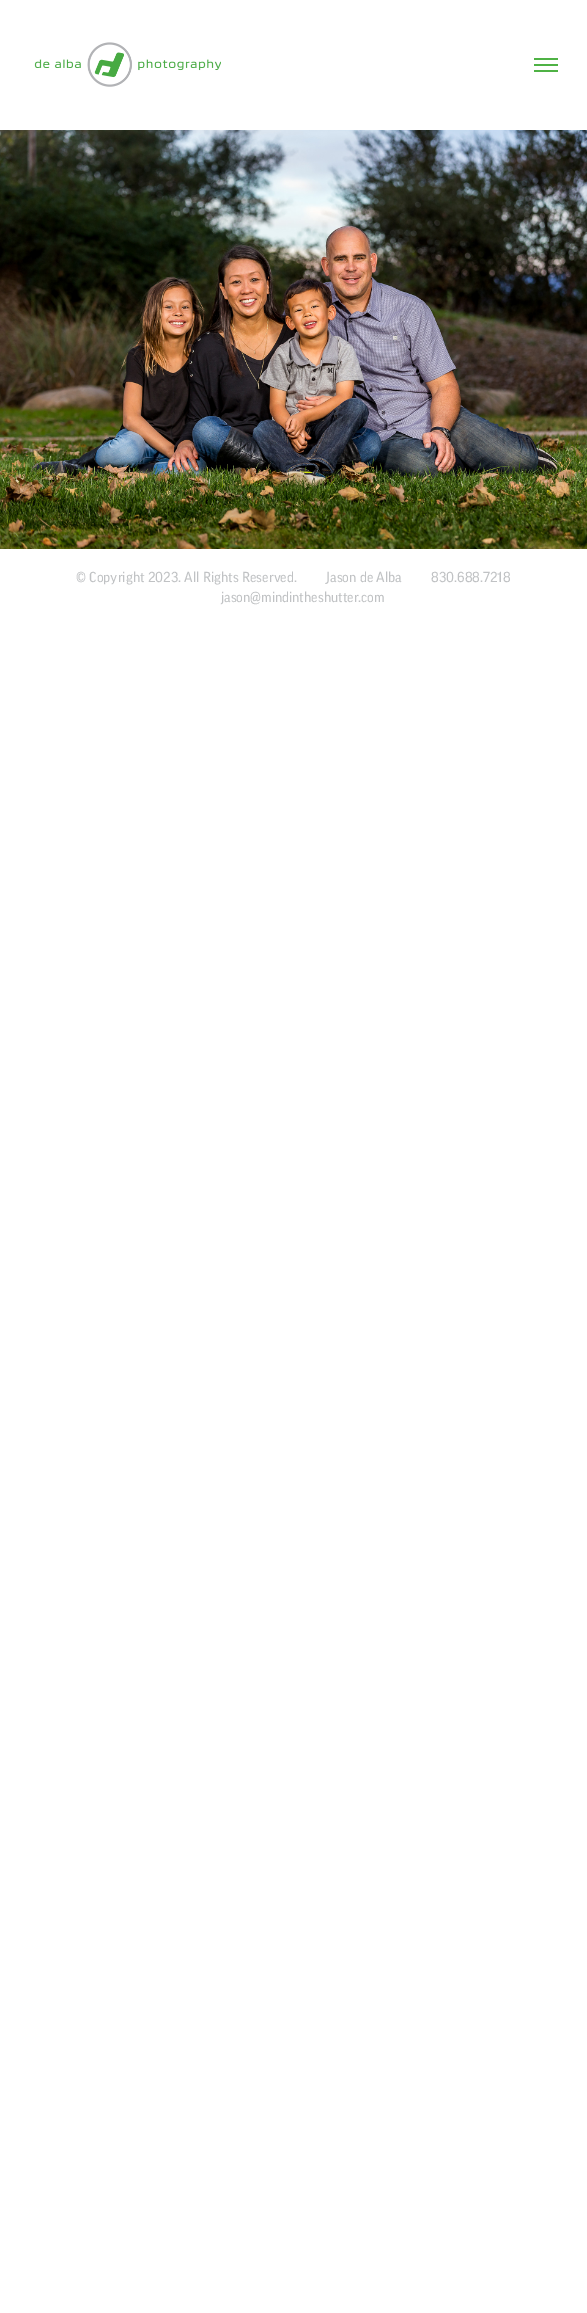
%!PS-Adobe-3.0
%%BoundingBox: 0 0 587 2313
%%LanguageLevel: 3
%%Pages: 1
%%EndComments
%%BeginProlog
/drawimage { 5 dict begin { /h /w /y /x /name } { exch def } forall
  gsave x y translate w h scale
  w h 8 [w 0 0 h 0 0] name (r) file false 3 colorimage grestore end } def
%%EndProlog
%%BeginSetup
<< /PageSize [587 2313] >> setpagedevice
%%EndSetup
%%Page: 1 1
0 2313 translate 1 -1 scale
4 setmiterlimit
1 setgray
0 0 587 2313 rectfill
(images/1.raw) 34 42 187 45 drawimage
0.31 0.698 0.271 setrgbcolor
534 58 24 2 rectfill
534 64 24 2 rectfill
534 70 24 2 rectfill
(images/2.raw) 0 130 587 419 drawimage
/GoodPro-Medium [14 0 0 -14 0 0] selectfont
0.753 0.761 0.769 setrgbcolor
76 582 moveto (© Copyright 2023. All Rights Reserved.         Jason de Alba) show
431 582 moveto (830.688.7218) show
221 602 moveto (jason@mindintheshutter.com) show
showpage
%%EOF
